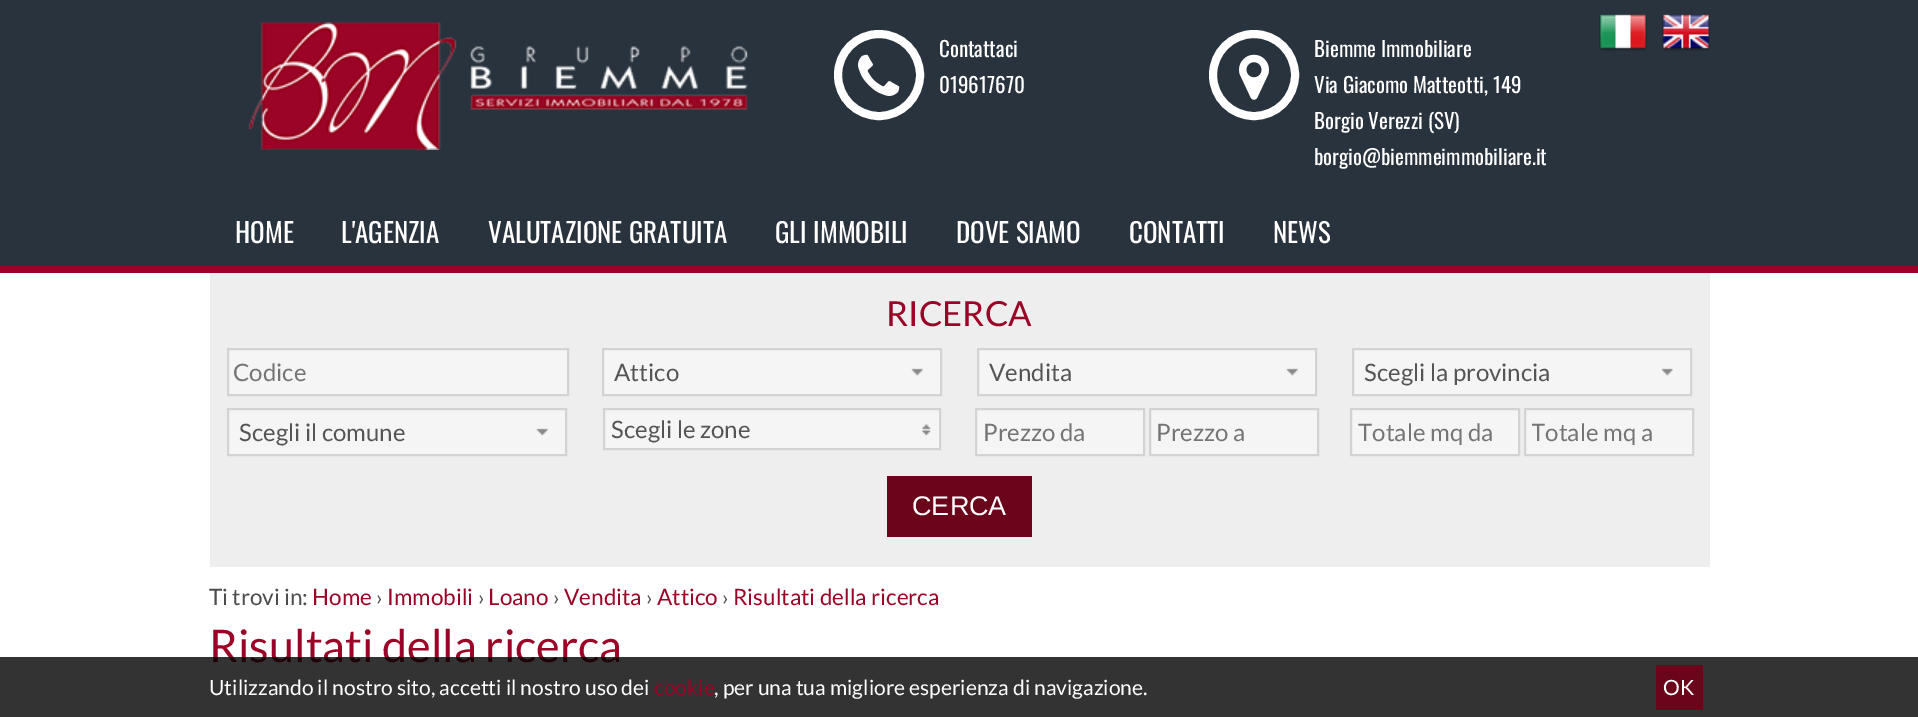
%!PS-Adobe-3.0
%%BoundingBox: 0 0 1918 717
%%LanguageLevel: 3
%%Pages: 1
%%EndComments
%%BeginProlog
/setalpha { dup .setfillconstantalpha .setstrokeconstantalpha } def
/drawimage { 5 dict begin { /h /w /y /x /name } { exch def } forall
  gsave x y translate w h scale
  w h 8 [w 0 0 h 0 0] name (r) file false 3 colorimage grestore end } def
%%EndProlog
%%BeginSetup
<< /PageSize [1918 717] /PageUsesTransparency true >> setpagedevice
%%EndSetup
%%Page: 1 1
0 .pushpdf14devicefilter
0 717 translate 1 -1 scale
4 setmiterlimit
1 setgray
0 0 1918 717 rectfill
0.161 0.2 0.239 setrgbcolor
0 0 1918 266 rectfill
0.608 0.016 0.149 setrgbcolor
0 266 1918 7 rectfill
(images/1.raw) 248 22 500 128 drawimage
1 setgray
8 setlinewidth
newpath 879 75 41 0 360 arc closepath stroke
(images/2.raw) 858 54 42 42 drawimage
newpath 1254 75 41 0 360 arc closepath stroke
(images/3.raw) 1239 54 30 46 drawimage
(images/4.raw) 1599 14 48 37 drawimage
(images/5.raw) 1662 14 48 37 drawimage
0.933 setgray
210 273 1500 294 rectfill
0.961 setgray
newpath 228 349 moveto 568 349 lineto 568 395 lineto 228 395 lineto closepath gsave fill grestore
0.827 setgray
2 setlinewidth
stroke
0.961 setgray
newpath 603 349 moveto 941 349 lineto 941 395 lineto 603 395 lineto closepath gsave fill grestore
0.827 setgray
stroke
(images/6.raw) 911 368 12 8 drawimage
0.961 setgray
newpath 978 349 moveto 1316 349 lineto 1316 395 lineto 978 395 lineto closepath gsave fill grestore
0.827 setgray
stroke
(images/6.raw) 1286 368 12 8 drawimage
0.961 setgray
newpath 1353 349 moveto 1691 349 lineto 1691 395 lineto 1353 395 lineto closepath gsave fill grestore
0.827 setgray
stroke
(images/6.raw) 1661 368 12 8 drawimage
0.961 setgray
newpath 228 409 moveto 566 409 lineto 566 455 lineto 228 455 lineto closepath gsave fill grestore
0.827 setgray
stroke
(images/7.raw) 536 428 12 8 drawimage
0.961 setgray
newpath 604 409 moveto 940 409 lineto 940 449 lineto 604 449 lineto closepath gsave fill grestore
0.827 setgray
stroke
(images/8.raw) 922 424 9 12 drawimage
0.961 setgray
newpath 976 409 moveto 1144 409 lineto 1144 455 lineto 976 455 lineto closepath gsave fill grestore
0.827 setgray
stroke
0.961 setgray
newpath 1150 409 moveto 1318 409 lineto 1318 455 lineto 1150 455 lineto closepath gsave fill grestore
0.827 setgray
stroke
0.961 setgray
newpath 1351 409 moveto 1519 409 lineto 1519 455 lineto 1351 455 lineto closepath gsave fill grestore
0.827 setgray
stroke
0.961 setgray
newpath 1525 409 moveto 1693 409 lineto 1693 455 lineto 1525 455 lineto closepath gsave fill grestore
0.827 setgray
stroke
0.42 0.02 0.11 setrgbcolor
887 476 145 61 rectfill
/Oswald-Regular [21 0 0 -21 0 0] selectfont
1 setgray
939 57 moveto (Contattaci) show
939 93 moveto (019617670) show
1314 57 moveto (Biemme Immobiliare) show
1314 93 moveto (Via Giacomo Matteotti, 149) show
1314 129 moveto (Borgio Verezzi \(SV\)) show
1314 165 moveto (borgio@biemmeimmobiliare.it) show
/Oswald-Regular [27 0 0 -27 0 0] selectfont
235 243 moveto (HOME) show
341 243 moveto (L'AGENZIA) show
488 243 moveto (VALUTAZIONE GRATUITA) show
775 243 moveto (GLI IMMOBILI) show
956 243 moveto (DOVE SIAMO) show
1129 243 moveto (CONTATTI) show
1273 243 moveto (NEWS) show
/Lato-Regular [34.5 0 0 -34.5 0 0] selectfont
0.608 0.016 0.149 setrgbcolor
886 326 moveto (RICERCA) show
/Lato-Regular [24 0 0 -24 0 0] selectfont
0.459 setgray
233 381 moveto (Codice) show
0.333 setgray
614 381 moveto (Attico) show
989 381 moveto (Vendita) show
1364 381 moveto (Scegli la provincia) show
239 441 moveto (Scegli il comune) show
611 438 moveto (Scegli le zone) show
0.459 setgray
983 441 moveto (Prezzo da) show
1156 441 moveto (Prezzo a) show
1358 441 moveto (Totale mq da) show
gsave
1532 417 160 29 rectclip
1531 441 moveto (Totale mq a) show
grestore
/LiberationSans-Regular [27 0 0 -27 0 0] selectfont
1 setgray
912 515 moveto (CERCA) show
/Lato-Regular [22.5 0 0 -22.5 0 0] selectfont
0.302 setgray
209 605 moveto (Ti trovi in:) show
0.608 0.016 0.149 setrgbcolor
312 605 moveto (Home) show
/Lato-Regular [21 0 0 -21 0 0] selectfont
0.302 setgray
376 605 moveto (›) show
/Lato-Regular [22.5 0 0 -22.5 0 0] selectfont
0.608 0.016 0.149 setrgbcolor
387 605 moveto (Immobili) show
/Lato-Regular [21 0 0 -21 0 0] selectfont
0.302 setgray
478 605 moveto (›) show
/Lato-Regular [22.5 0 0 -22.5 0 0] selectfont
0.608 0.016 0.149 setrgbcolor
488 605 moveto (Loano) show
/Lato-Regular [21 0 0 -21 0 0] selectfont
0.302 setgray
553 605 moveto (›) show
/Lato-Regular [22.5 0 0 -22.5 0 0] selectfont
0.608 0.016 0.149 setrgbcolor
564 605 moveto (Vendita) show
/Lato-Regular [21 0 0 -21 0 0] selectfont
0.302 setgray
646 605 moveto (›) show
/Lato-Regular [22.5 0 0 -22.5 0 0] selectfont
0.608 0.016 0.149 setrgbcolor
657 605 moveto (Attico) show
/Lato-Regular [21 0 0 -21 0 0] selectfont
0.302 setgray
722 605 moveto (›) show
/Lato-Regular [22.5 0 0 -22.5 0 0] selectfont
0.608 0.016 0.149 setrgbcolor
733 605 moveto (Risultati della ricerca) show
/Lato-Regular [45 0 0 -45 0 0] selectfont
209 662 moveto (Risultati della ricerca) show
0.8 setalpha
0 setgray
0 657 1918 60 rectfill
/Lato-Regular [21 0 0 -21 0 0] selectfont
1 setalpha
1 setgray
209 695 moveto (Utilizzando il nostro sito, accetti il nostro uso dei) show
0.608 0.016 0.149 setrgbcolor
654 695 moveto (cookie) show
1 setgray
714 695 moveto (, per una tua migliore esperienza di navigazione.) show
0.42 0.02 0.11 setrgbcolor
1656 665 47 45 rectfill
1 setgray
1663 695 moveto (OK) show
.poppdf14devicefilter showpage
%%EOF
